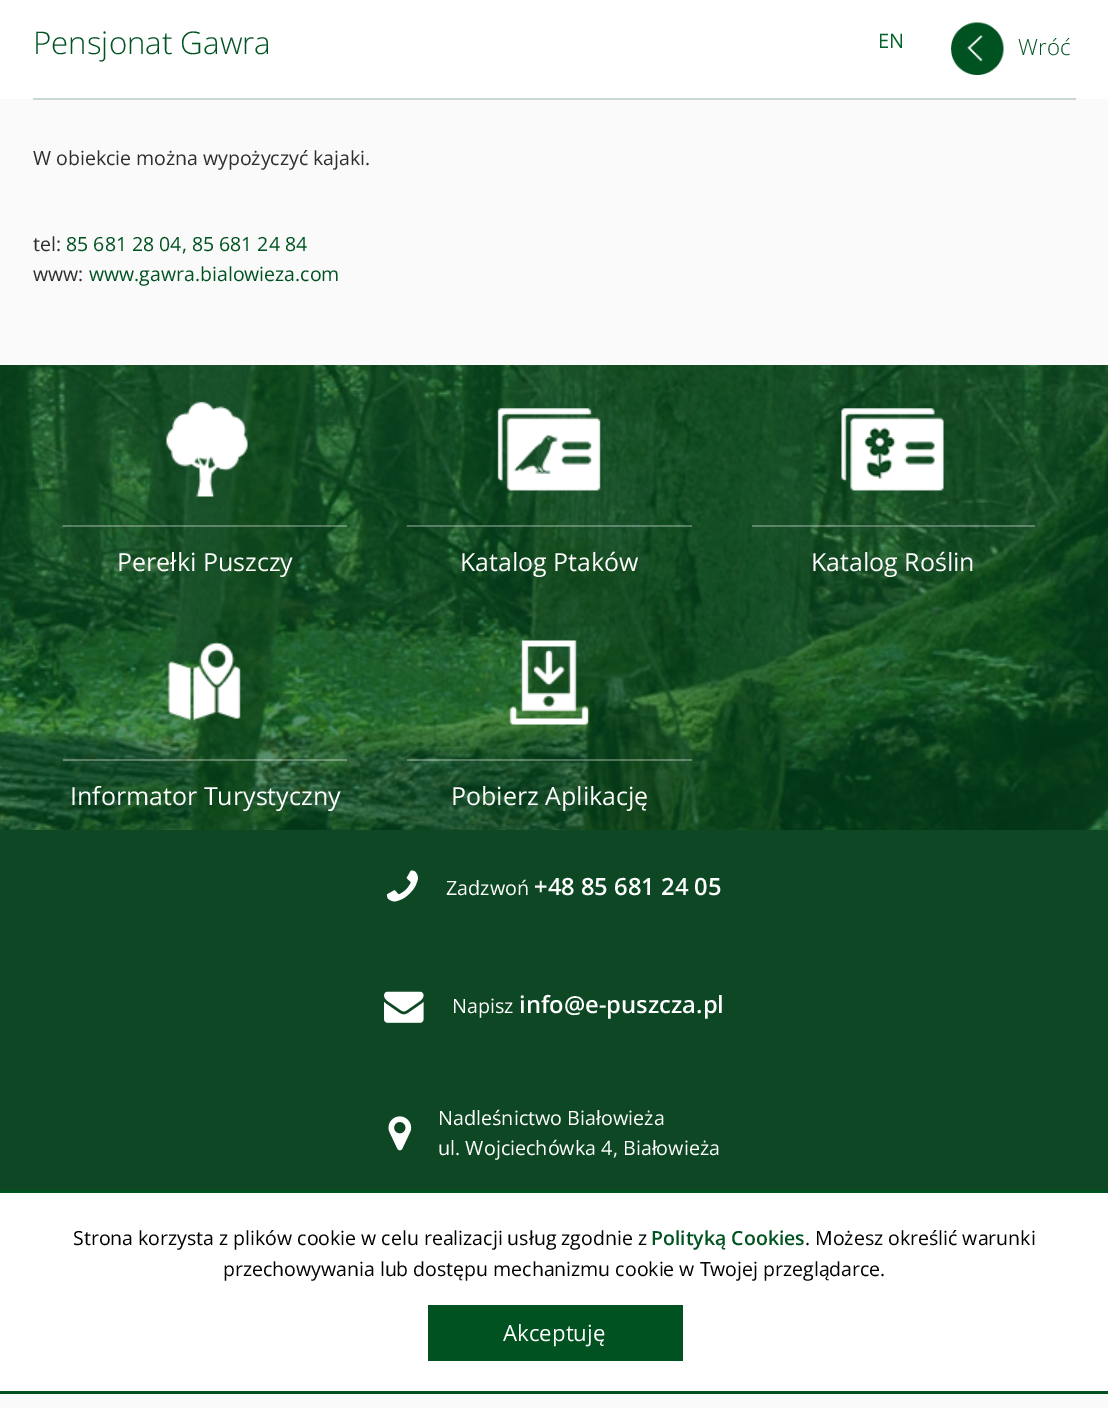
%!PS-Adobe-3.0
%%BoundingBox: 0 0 1108 1408
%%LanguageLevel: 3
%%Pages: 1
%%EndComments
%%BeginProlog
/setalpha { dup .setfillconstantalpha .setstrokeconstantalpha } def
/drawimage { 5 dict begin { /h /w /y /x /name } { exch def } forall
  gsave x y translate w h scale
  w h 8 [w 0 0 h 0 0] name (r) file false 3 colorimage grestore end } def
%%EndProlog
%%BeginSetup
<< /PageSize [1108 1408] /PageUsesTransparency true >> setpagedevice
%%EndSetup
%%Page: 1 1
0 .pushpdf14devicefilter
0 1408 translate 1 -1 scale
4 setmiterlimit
0.98 setgray
0 0 1108 1408 rectfill
1 setgray
0 0 1108 99 rectfill
0.784 0.847 0.812 setrgbcolor
33 98 1043 2 rectfill
(images/1.raw) 951 22 53 53 drawimage
(images/2.raw) 0 365 1108 465 drawimage
(images/3.raw) 166 401 82 96 drawimage
0.3 setalpha
1 setgray
63 525 284 2 rectfill
1 setalpha
(images/4.raw) 497 408 104 83 drawimage
0.3 setalpha
407 525 285 2 rectfill
1 setalpha
(images/5.raw) 841 408 103 83 drawimage
0.3 setalpha
752 525 283 2 rectfill
1 setalpha
(images/6.raw) 167 641 74 80 drawimage
0.3 setalpha
63 759 284 2 rectfill
1 setalpha
(images/7.raw) 509 640 80 85 drawimage
0.3 setalpha
407 759 285 2 rectfill
1 setalpha
0.055 0.278 0.141 setrgbcolor
0 830 1108 360 rectfill
(images/8.raw) 386 870 32 32 drawimage
(images/9.raw) 384 991 40 32 drawimage
(images/10.raw) 388 1116 24 35 drawimage
1 setgray
0 1193 1108 198 rectfill
0 0.322 0.129 setrgbcolor
0 1190 1108 3 rectfill
0 1391 1108 3 rectfill
428 1305 255 56 rectfill
/OpenSans-Light [31.25 0 0 -31.25 0 0] selectfont
33 54 moveto (Pensjonat Gawra) show
/OpenSans-Light [22.25 0 0 -22.25 0 0] selectfont
1018 55 moveto (Wróć) show
/OpenSans-Regular [19.5 0 0 -19.5 0 0] selectfont
0.18 setgray
33 165 moveto (W obiekcie można wypożyczyć kajaki.) show
33 251 moveto (tel:) show
0 0.322 0.129 setrgbcolor
66 251 moveto (85 681 28 04, 85 681 24 84) show
0.18 setgray
33 281 moveto (www:) show
0 0.322 0.129 setrgbcolor
89 281 moveto (www.gawra.bialowieza.com) show
/OpenSans-Regular [20 0 0 -20 0 0] selectfont
0.012 0.388 0.165 setrgbcolor
878 48 moveto (EN) show
/OpenSans-Regular [25 0 0 -25 0 0] selectfont
1 setgray
117 571 moveto (Perełki Puszczy) show
460 571 moveto (Katalog Ptaków) show
811 571 moveto (Katalog Roślin) show
70 805 moveto (Informator Turystyczny) show
451 805 moveto (Pobierz Aplikację) show
/OpenSans-Regular [19.75 0 0 -19.75 0 0] selectfont
446 895 moveto (Zadzwoń) show
/OpenSans-SemiBold [23.75 0 0 -23.75 0 0] selectfont
534 895 moveto (+48 85 681 24 05) show
/OpenSans-Regular [19.75 0 0 -19.75 0 0] selectfont
452 1013 moveto (Napisz) show
/OpenSans-SemiBold [23.75 0 0 -23.75 0 0] selectfont
519 1013 moveto (info@e-puszcza.pl) show
/OpenSans-Regular [19.75 0 0 -19.75 0 0] selectfont
438 1125 moveto (Nadleśnictwo Białowieża) show
438 1155 moveto (ul. Wojciechówka 4, Białowieża) show
/OpenSans-Regular [19.5 0 0 -19.5 0 0] selectfont
0 setgray
73 1245 moveto (Strona korzysta z plików cookie w celu realizacji usług zgodnie z) show
/OpenSans-SemiBold [19.5 0 0 -19.5 0 0] selectfont
0 0.322 0.129 setrgbcolor
651 1245 moveto (Polityką Cookies) show
/OpenSans-Regular [19.5 0 0 -19.5 0 0] selectfont
0 setgray
805 1245 moveto (. Możesz określić warunki) show
223 1276 moveto (przechowywania lub dostępu mechanizmu cookie w Twojej przeglądarce.) show
/OpenSans-Regular [22.25 0 0 -22.25 0 0] selectfont
1 setgray
503 1341 moveto (Akceptuję) show
.poppdf14devicefilter showpage
%%EOF
